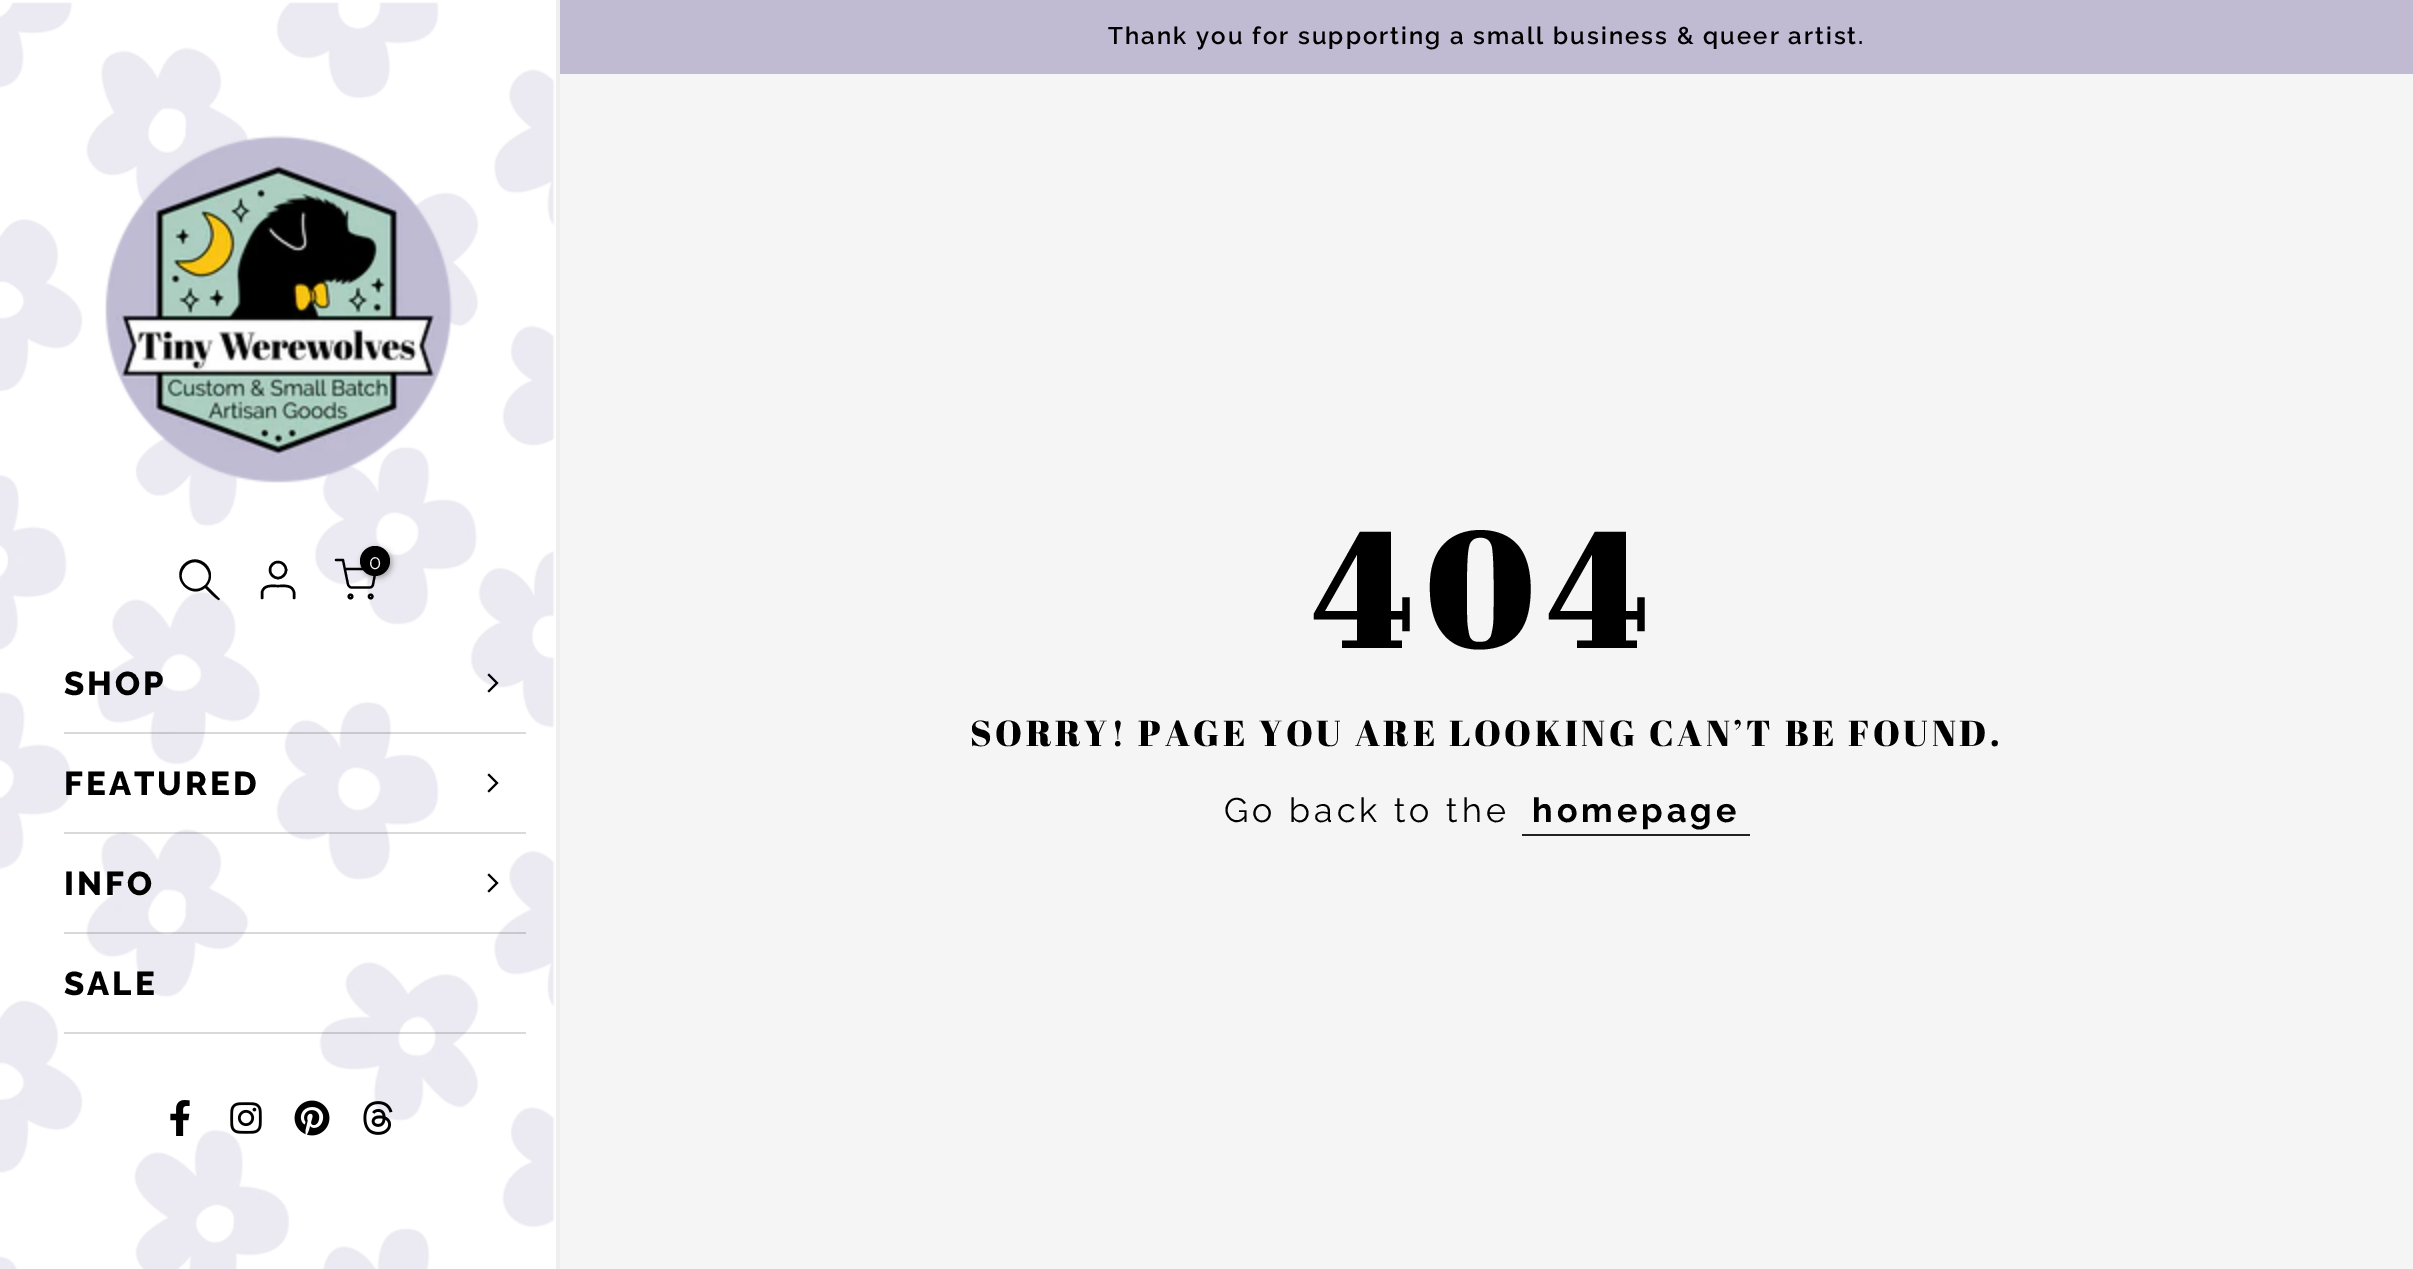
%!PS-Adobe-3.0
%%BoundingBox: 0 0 2413 1269
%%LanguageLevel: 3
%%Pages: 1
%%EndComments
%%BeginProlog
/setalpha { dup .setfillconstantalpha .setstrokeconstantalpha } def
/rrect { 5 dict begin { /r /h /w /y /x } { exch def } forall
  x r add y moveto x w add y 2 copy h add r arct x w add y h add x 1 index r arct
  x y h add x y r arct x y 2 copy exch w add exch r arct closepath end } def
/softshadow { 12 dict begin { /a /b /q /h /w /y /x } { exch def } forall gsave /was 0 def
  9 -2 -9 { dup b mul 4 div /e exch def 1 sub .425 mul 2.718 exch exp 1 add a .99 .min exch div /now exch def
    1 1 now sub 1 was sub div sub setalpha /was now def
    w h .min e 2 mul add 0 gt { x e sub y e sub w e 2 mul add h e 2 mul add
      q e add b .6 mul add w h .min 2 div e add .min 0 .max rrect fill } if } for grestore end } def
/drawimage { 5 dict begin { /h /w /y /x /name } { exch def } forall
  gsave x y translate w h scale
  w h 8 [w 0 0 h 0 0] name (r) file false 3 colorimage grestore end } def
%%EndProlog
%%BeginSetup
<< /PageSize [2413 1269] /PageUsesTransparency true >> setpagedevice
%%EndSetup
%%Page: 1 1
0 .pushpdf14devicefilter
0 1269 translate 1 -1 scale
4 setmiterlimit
0.961 setgray
0 0 2413 1269 rectfill
0.753 0.729 0.824 setrgbcolor
560 0 1853 74 rectfill
1 setgray
0 0 556 1269 rectfill
(images/1.raw) 0 2 555 1267 drawimage
0.937 setgray
556 0 4 1269 rectfill
(images/2.raw) 105 135 348 348 drawimage
0 setgray
newpath 205 585 moveto 192 597 173 579 186 566 curveto 198 554 217 573 205 585 curveto closepath 205 588 moveto 190 600 170 578 184 564 curveto 199 550 220 571 207 586 curveto 220 599 lineto 219 600 lineto 218 601 207 590 205 588 curveto closepath eofill
2.4 setlinewidth
newpath 278 570 8 0 360 arc closepath stroke
1 setlinecap
1 setlinejoin
newpath 294 598 moveto 294 592.5 lineto 292.5 584.5 284 586 278 586 curveto 272 586 263.5 584.5 262 592.5 curveto 262 598 lineto stroke
2.2 setlinewidth
newpath 336 560 moveto 343 560 lineto 348 584.5 lineto 348.5 586 350 587.5 351.5 587.5 curveto 369.5 587.5 lineto 371.5 587.5 373 586 373 584.5 curveto 376 569 lineto 345 569 lineto stroke
362 548 30 30 15 3 0.3 softshadow
newpath 375 561 15 0 360 arc closepath fill
0 setlinecap
0 setlinejoin
newpath 350.5 596.5 1.8 0 360 arc closepath stroke
newpath 370.7 596.5 1.8 0 360 arc closepath stroke
0.15 setalpha
64 732 462 2 rectfill
1 setalpha
2.1 setlinewidth
2 setlinecap
newpath 489 675 moveto 497 683 lineto 489 691 lineto stroke
0.15 setalpha
64 832 462 2 rectfill
1 setalpha
newpath 489 775 moveto 497 783 lineto 489 791 lineto stroke
0.15 setalpha
64 932 462 2 rectfill
1 setalpha
newpath 489 875 moveto 497 883 lineto 489 891 lineto stroke
0.15 setalpha
64 1032 462 2 rectfill
1 setalpha
(images/3.raw) 170 1100 20 36 drawimage
(images/4.raw) 230 1102 32 32 drawimage
(images/5.raw) 294 1100 36 36 drawimage
(images/6.raw) 363 1101 30 34 drawimage
0.133 setgray
1522 834 228 2 rectfill
/Raleway-SemiBold [24 0 0 -24 0 0] selectfont
0 setgray
1108 44 moveto 2 0 (Thank you for supporting a small business & queer artist.) ashow
/Raleway-Regular [20 0 0 -20 0 0] selectfont
0.961 setgray
369 569 moveto (0) show
/Raleway-ExtraBold [33 0 0 -33 0 0] selectfont
0 setgray
64 695 moveto 3 0 (SHOP) ashow
64 795 moveto 3 0 (FEATURED) ashow
64 895 moveto 3 0 (INFO) ashow
64 995 moveto 3 0 (SALE) ashow
/AbrilFatface-Bold [160 0 0 -160 0 0] selectfont
1313 648 moveto 16 0 (404) ashow
/AbrilFatface-Regular [36 0 0 -36 0 0] selectfont
970 746 moveto 3.6 0 (SORRY! PAGE YOU ARE LOOKING CAN’T BE FOUND.) ashow
/Raleway-Regular [34 0 0 -34 0 0] selectfont
1224 822 moveto 4 0 (Go back to the) ashow
/Raleway-Bold [34 0 0 -34 0 0] selectfont
1532 822 moveto 4 0 (homepage) ashow
.poppdf14devicefilter showpage
%%EOF
